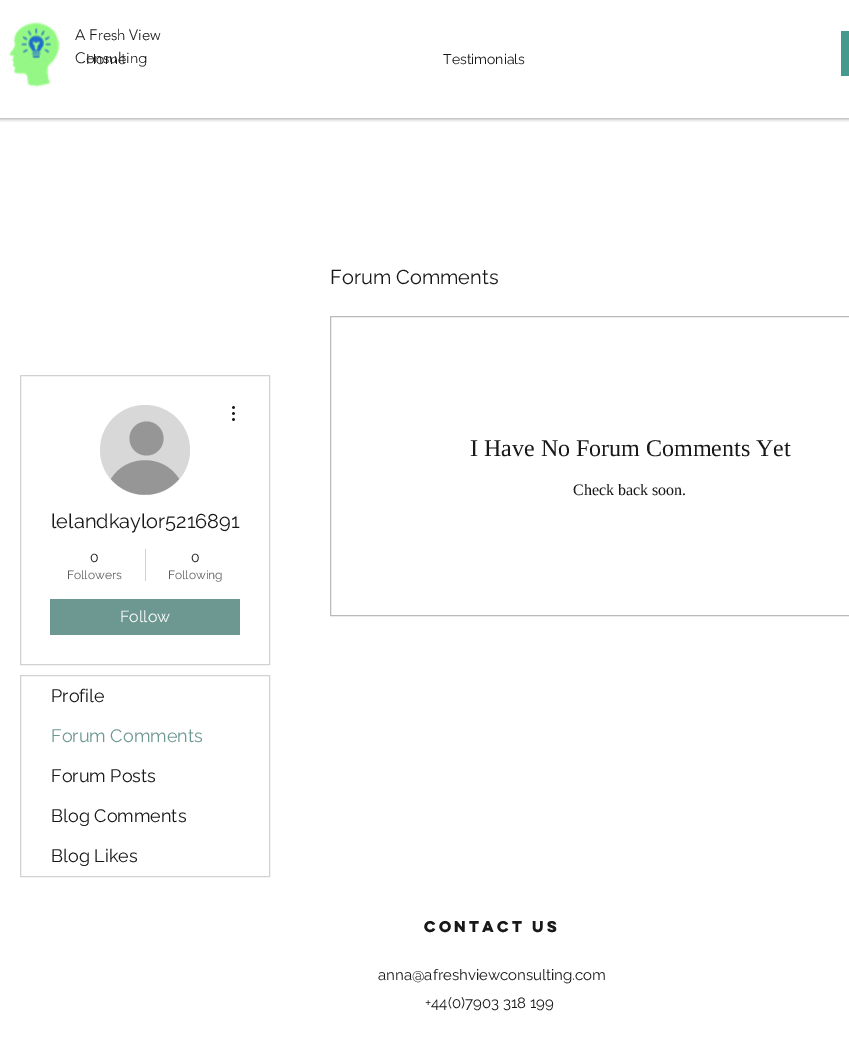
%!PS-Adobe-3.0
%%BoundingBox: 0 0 849 1038
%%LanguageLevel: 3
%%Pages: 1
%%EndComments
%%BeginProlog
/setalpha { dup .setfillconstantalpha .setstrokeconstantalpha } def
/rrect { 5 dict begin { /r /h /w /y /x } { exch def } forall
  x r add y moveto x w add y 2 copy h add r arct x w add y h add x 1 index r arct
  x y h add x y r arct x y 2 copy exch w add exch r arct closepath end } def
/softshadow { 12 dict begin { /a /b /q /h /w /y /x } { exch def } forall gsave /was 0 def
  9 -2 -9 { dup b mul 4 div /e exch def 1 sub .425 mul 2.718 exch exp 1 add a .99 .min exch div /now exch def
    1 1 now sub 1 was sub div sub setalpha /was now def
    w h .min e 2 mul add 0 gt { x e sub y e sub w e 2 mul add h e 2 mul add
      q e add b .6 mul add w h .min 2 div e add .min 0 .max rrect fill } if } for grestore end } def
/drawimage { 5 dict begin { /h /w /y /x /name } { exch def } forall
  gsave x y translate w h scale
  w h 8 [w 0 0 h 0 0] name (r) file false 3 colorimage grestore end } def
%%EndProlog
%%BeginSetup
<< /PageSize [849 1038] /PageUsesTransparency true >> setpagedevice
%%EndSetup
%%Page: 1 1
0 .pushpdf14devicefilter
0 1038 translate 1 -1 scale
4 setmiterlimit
1 setgray
0 0 849 1038 rectfill
gsave
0 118 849 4 rectclip
0 setgray
0 0 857 118 0 2.5 0.5 softshadow
grestore
(images/1.raw) 8 22 52 66 drawimage
0.271 0.604 0.557 setrgbcolor
841 31 8 45 rectfill
0.729 setgray
330.5 316.5 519 299 rectstroke
0.82 setgray
20.5 375.5 249 289 rectstroke
0.847 setgray
newpath 145 450 45 0 360 arc closepath fill
0.588 setgray
newpath 146.5 438.5 17 0 360 arc closepath fill
newpath 179 479 moveto 161 500 129 500 111 479 curveto 126 454 164 454 179 479 curveto closepath fill
(images/2.raw) 232 406 3 15 drawimage
0.82 setgray
145 549 1 32 rectfill
0.427 0.592 0.569 setrgbcolor
50 599 190 36 rectfill
0.82 setgray
20.5 675.5 249 201 rectstroke
/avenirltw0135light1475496-Light [15 0 0 -15 0 0] selectfont
0.094 setgray
75 40 moveto (A Fresh View) show
75 63 moveto (Consulting) show
/Raleway-Regular [14 0 0 -14 0 0] selectfont
86 64 moveto (Home) show
443 64 moveto (Testimonials) show
/Raleway-Regular [20 0 0 -20 0 0] selectfont
330 284 moveto (Forum Comments) show
/LiberationSerif-Regular [24 0 0 -24 0 0] selectfont
470 456 moveto (I Have No Forum Comments Yet) show
/LiberationSerif-Regular [16 0 0 -16 0 0] selectfont
573 495 moveto (Check back soon.) show
/Raleway-Regular [20 0 0 -20 0 0] selectfont
51 528 moveto (lelandkaylor5216891) show
/Raleway-Regular [14 0 0 -14 0 0] selectfont
90 562 moveto (0) show
/Raleway-Regular [12 0 0 -12 0 0] selectfont
0.365 setgray
67 579 moveto (Followers) show
/Raleway-Regular [14 0 0 -14 0 0] selectfont
0.094 setgray
191 562 moveto (0) show
/Raleway-Regular [12 0 0 -12 0 0] selectfont
0.365 setgray
168 579 moveto (Following) show
/Raleway-Regular [16 0 0 -16 0 0] selectfont
1 setgray
120 622 moveto (Follow) show
/Raleway-Regular [18 0 0 -18 0 0] selectfont
0.094 setgray
51 702 moveto (Profile) show
0.427 0.592 0.569 setrgbcolor
51 742 moveto (Forum Comments) show
0.094 setgray
51 782 moveto (Forum Posts) show
51 822 moveto (Blog Comments) show
51 862 moveto (Blog Likes) show
/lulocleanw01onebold-Bold [14 0 0 -14 0 0] selectfont
424 932 moveto (Contact US) show
/Raleway-Regular [15 0 0 -15 0 0] selectfont
378 980 moveto (anna@afreshviewconsulting.com) show
425 1008 moveto (+44\(0\)7903 318 199) show
.poppdf14devicefilter showpage
%%EOF
